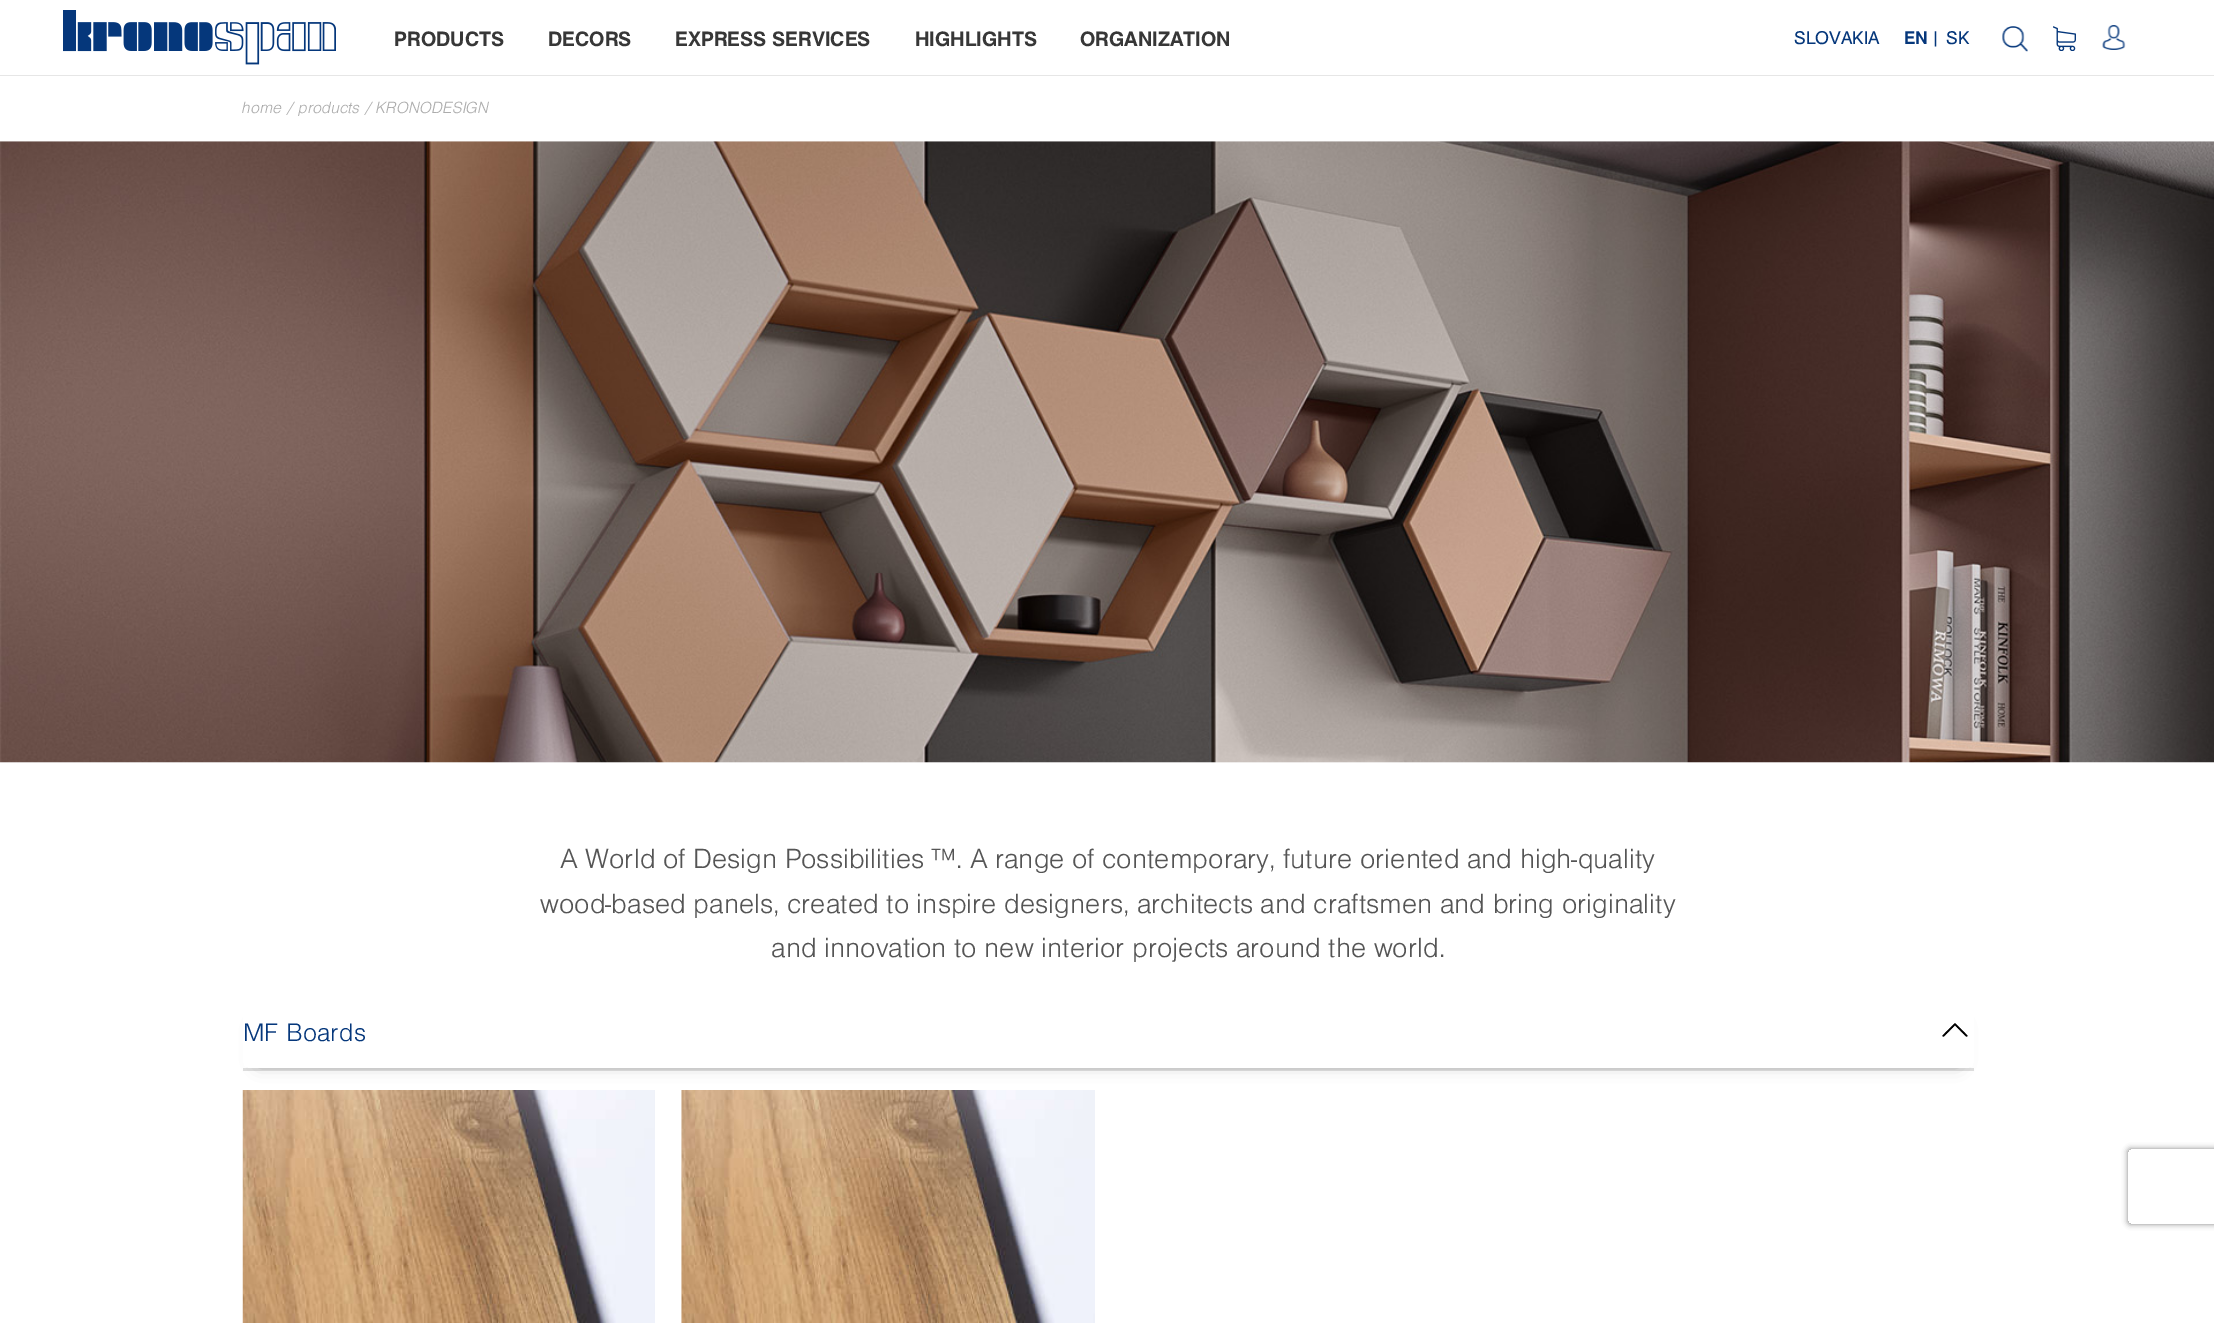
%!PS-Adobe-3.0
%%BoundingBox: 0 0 2214 1323
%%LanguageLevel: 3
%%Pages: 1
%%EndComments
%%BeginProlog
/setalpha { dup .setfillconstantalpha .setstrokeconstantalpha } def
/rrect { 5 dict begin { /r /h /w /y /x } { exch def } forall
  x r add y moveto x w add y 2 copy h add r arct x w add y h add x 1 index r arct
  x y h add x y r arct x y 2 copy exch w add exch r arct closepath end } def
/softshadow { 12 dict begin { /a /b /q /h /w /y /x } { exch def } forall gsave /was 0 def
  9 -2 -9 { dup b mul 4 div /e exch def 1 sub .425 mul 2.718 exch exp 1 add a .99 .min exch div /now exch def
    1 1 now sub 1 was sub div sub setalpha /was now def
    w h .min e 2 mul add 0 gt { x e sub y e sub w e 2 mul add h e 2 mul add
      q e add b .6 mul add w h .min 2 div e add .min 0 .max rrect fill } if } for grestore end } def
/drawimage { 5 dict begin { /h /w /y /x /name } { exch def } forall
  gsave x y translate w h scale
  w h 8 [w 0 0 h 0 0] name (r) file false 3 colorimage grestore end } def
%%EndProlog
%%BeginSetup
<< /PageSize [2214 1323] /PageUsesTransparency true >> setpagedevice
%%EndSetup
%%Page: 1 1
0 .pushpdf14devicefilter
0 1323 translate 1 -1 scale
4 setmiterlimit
1 setgray
0 0 2214 1323 rectfill
0.902 setgray
0 75 2214 1 rectfill
(images/1.raw) 63 10 273 55 drawimage
(images/2.raw) 2002 26 26 26 drawimage
(images/3.raw) 2053 26 23 25 drawimage
(images/4.raw) 2102 25 24 25 drawimage
0.98 setgray
0 141 1974 622 rectfill
(images/5.raw) 0 141 2214 622 drawimage
0.875 setgray
243 1068 1731 3 rectfill
gsave
newpath 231 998 moveto 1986 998 lineto 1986 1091 lineto 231 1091 lineto closepath 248 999 moveto 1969 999 lineto 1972 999 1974 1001 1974 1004 curveto 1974 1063 lineto 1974 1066 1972 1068 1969 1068 curveto 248 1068 lineto 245 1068 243 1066 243 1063 curveto 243 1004 lineto 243 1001 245 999 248 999 curveto closepath eoclip newpath
0 setgray
259 1026 1699 37 0 9 0.3 softshadow
grestore
(images/6.raw) 1942 1023 26 14 drawimage
(images/7.raw) 242 1090 413 233 drawimage
(images/8.raw) 681 1090 414 233 drawimage
gsave
newpath 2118 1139 moveto 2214 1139 lineto 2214 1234 lineto 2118 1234 lineto closepath 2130.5 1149 moveto 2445.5 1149 lineto 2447 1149 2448 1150 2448 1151.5 curveto 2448 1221.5 lineto 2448 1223 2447 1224 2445.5 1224 curveto 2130.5 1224 lineto 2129 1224 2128 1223 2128 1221.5 curveto 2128 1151.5 lineto 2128 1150 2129 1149 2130.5 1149 curveto closepath eoclip newpath
0.502 setgray
2128 1149 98 75 2.5 3 1 softshadow
grestore
/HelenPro-Bold [22.5 0 0 -22.5 0 0] selectfont
0.216 setgray
394 46 moveto (PRODUCTS) show
548 46 moveto (DECORS) show
675 46 moveto (EXPRESS SERVICES) show
915 46 moveto (HIGHLIGHTS) show
1080 46 moveto (ORGANIZATION) show
/HelenPro-Regular [20 0 0 -20 0 0] selectfont
0.02 0.216 0.482 setrgbcolor
1794 44 moveto (SLOVAKIA) show
/HelenPro-Bold [20 0 0 -20 0 0] selectfont
1904 44 moveto (EN |) show
/HelenPro-Regular [20 0 0 -20 0 0] selectfont
1946 44 moveto (SK) show
/HelenPro-LightItalic [17.5 0 0 -17.5 0 0] selectfont
0.675 setgray
242 113 moveto (home / products / KRONODESIGN) show
/HelenPro-Light [30 0 0 -30 0 0] selectfont
0.333 setgray
560 868 moveto (A World of Design Possibilities ™. A range of contemporary, future oriented and high-quality) show
540 913 moveto (wood-based panels, created to inspire designers, architects and craftsmen and bring originality) show
771 957 moveto (and innovation to new interior projects around the world.) show
/HelenPro-Light [27.5 0 0 -27.5 0 0] selectfont
0.02 0.216 0.482 setrgbcolor
243 1041 moveto 0.25 0 (MF Boards) ashow
.poppdf14devicefilter showpage
%%EOF
